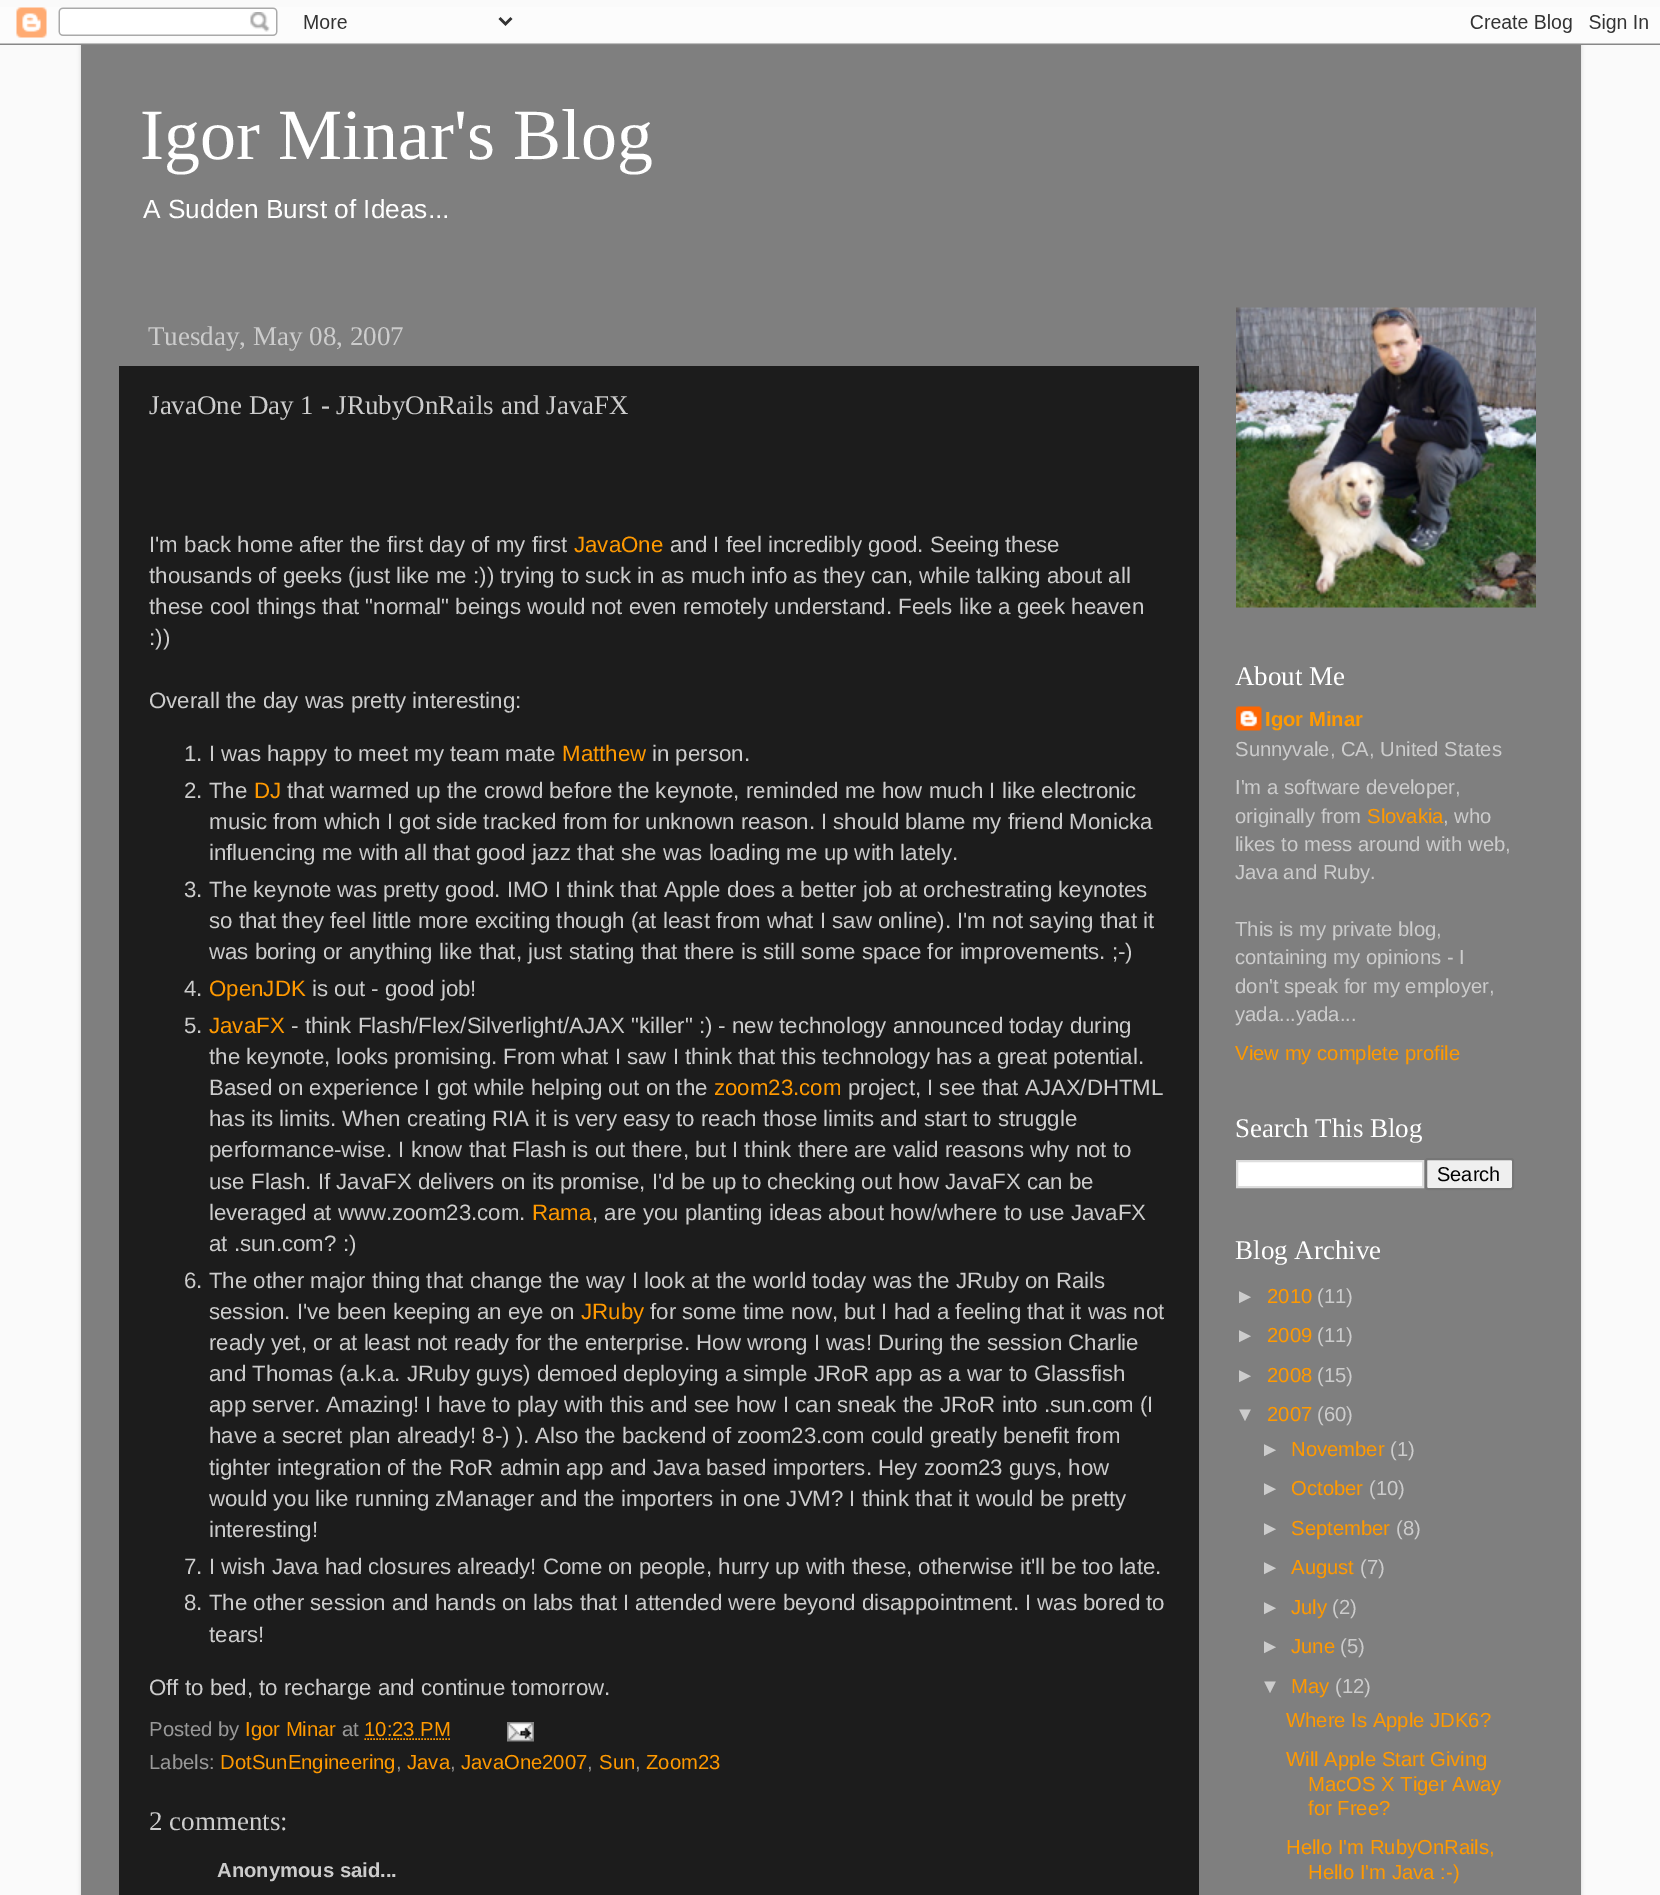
%!PS-Adobe-3.0
%%BoundingBox: 0 0 1660 1895
%%LanguageLevel: 3
%%Pages: 1
%%EndComments
%%BeginProlog
/setalpha { dup .setfillconstantalpha .setstrokeconstantalpha } def
/rrect { 5 dict begin { /r /h /w /y /x } { exch def } forall
  x r add y moveto x w add y 2 copy h add r arct x w add y h add x 1 index r arct
  x y h add x y r arct x y 2 copy exch w add exch r arct closepath end } def
/softshadow { 12 dict begin { /a /b /q /h /w /y /x } { exch def } forall gsave /was 0 def
  9 -2 -9 { dup b mul 4 div /e exch def 1 sub .425 mul 2.718 exch exp 1 add a .99 .min exch div /now exch def
    1 1 now sub 1 was sub div sub setalpha /was now def
    w h .min e 2 mul add 0 gt { x e sub y e sub w e 2 mul add h e 2 mul add
      q e add b .6 mul add w h .min 2 div e add .min 0 .max rrect fill } if } for grestore end } def
/drawimage { 5 dict begin { /h /w /y /x /name } { exch def } forall
  gsave x y translate w h scale
  w h 8 [w 0 0 h 0 0] name (r) file false 3 colorimage grestore end } def
%%EndProlog
%%BeginSetup
<< /PageSize [1660 1895] /PageUsesTransparency true >> setpagedevice
%%EndSetup
%%Page: 1 1
0 .pushpdf14devicefilter
0 1895 translate 1 -1 scale
4 setmiterlimit
0.98 setgray
0 0 1660 1895 rectfill
0 setgray
81 45 1500 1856 0 2 0.15 softshadow
(images/1.raw) 0 7 1660 38 drawimage
0.498 setgray
81 45 1500 1850 rectfill
0.11 setgray
119 366 1080 1529 rectfill
1 0.6 0 setrgbcolor
1.5 setlinewidth
[1.5 1.5] 0 setdash
newpath 364.5 1739 moveto 451 1739 lineto stroke
(images/2.raw) 507 1722 27 20 drawimage
(images/3.raw) 1236 307 300 301 drawimage
(images/4.raw) 1236 706 26 25 drawimage
1 setgray
newpath 1237 1161 moveto 1423 1161 lineto 1423 1187 lineto 1237 1187 lineto closepath gsave fill grestore
0.867 setgray
2 setlinewidth
[] 0 setdash
stroke
0.937 setgray
1426 1159 87 30 2 rrect gsave fill grestore
0.463 setgray
stroke
/LiberationSerif-Regular [72 0 0 -72 0 0] selectfont
1 setgray
140 159 moveto (Igor Minar's Blog) show
/LiberationSans-Regular [26.25 0 0 -26.25 0 0] selectfont
143 218 moveto (A Sudden Burst of Ideas...) show
/LiberationSerif-Regular [27 0 0 -27 0 0] selectfont
0.8 setgray
148 345 moveto (Tuesday, May 08, 2007) show
149 414 moveto (JavaOne Day 1 - JRubyOnRails and JavaFX) show
/LiberationSans-Regular [22.25 0 0 -22.25 0 0] selectfont
149 552 moveto (I'm back home after the first day of my first) show
1 0.6 0 setrgbcolor
574 552 moveto (JavaOne) show
0.8 setgray
670 552 moveto (and I feel incredibly good. Seeing these) show
149 583 moveto (thousands of geeks \(just like me :\)\) trying to suck in as much info as they can, while talking about all) show
149 614 moveto (these cool things that "normal" beings would not even remotely understand. Feels like a geek heaven) show
149 645 moveto (:\)\)) show
149 708 moveto (Overall the day was pretty interesting:) show
184 761 moveto (1. I was happy to meet my team mate) show
1 0.6 0 setrgbcolor
562 761 moveto (Matthew) show
0.8 setgray
652 761 moveto (in person.) show
184 798 moveto (2. The) show
1 0.6 0 setrgbcolor
254 798 moveto (DJ) show
0.8 setgray
287 798 moveto (that warmed up the crowd before the keynote, reminded me how much I like electronic) show
209 829 moveto (music from which I got side tracked from for unknown reason. I should blame my friend Monicka) show
209 860 moveto (influencing me with all that good jazz that she was loading me up with lately.) show
184 897 moveto (3. The keynote was pretty good. IMO I think that Apple does a better job at orchestrating keynotes) show
209 928 moveto (so that they feel little more exciting though \(at least from what I saw online\). I'm not saying that it) show
209 959 moveto (was boring or anything like that, just stating that there is still some space for improvements. ;-\)) show
184 996 moveto (4.) show
1 0.6 0 setrgbcolor
209 996 moveto (OpenJDK) show
0.8 setgray
312 996 moveto (is out - good job!) show
184 1033 moveto (5.) show
1 0.6 0 setrgbcolor
209 1033 moveto (JavaFX) show
0.8 setgray
291 1033 moveto (- think Flash/Flex/Silverlight/AJAX "killer" :\) - new technology announced today during) show
209 1064 moveto (the keynote, looks promising. From what I saw I think that this technology has a great potential.) show
209 1095 moveto (Based on experience I got while helping out on the) show
1 0.6 0 setrgbcolor
714 1095 moveto (zoom23.com) show
0.8 setgray
848 1095 moveto (project, I see that AJAX/DHTML) show
209 1126 moveto (has its limits. When creating RIA it is very easy to reach those limits and start to struggle) show
209 1157 moveto (performance-wise. I know that Flash is out there, but I think there are valid reasons why not to) show
209 1189 moveto (use Flash. If JavaFX delivers on its promise, I'd be up to checking out how JavaFX can be) show
209 1220 moveto (leveraged at www.zoom23.com.) show
1 0.6 0 setrgbcolor
532 1220 moveto (Rama) show
0.8 setgray
592 1220 moveto (, are you planting ideas about how/where to use JavaFX) show
209 1251 moveto (at .sun.com? :\)) show
184 1288 moveto (6. The other major thing that change the way I look at the world today was the JRuby on Rails) show
209 1319 moveto (session. I've been keeping an eye on) show
1 0.6 0 setrgbcolor
581 1319 moveto (JRuby) show
0.8 setgray
650 1319 moveto (for some time now, but I had a feeling that it was not) show
209 1350 moveto (ready yet, or at least not ready for the enterprise. How wrong I was! During the session Charlie) show
209 1381 moveto (and Thomas \(a.k.a. JRuby guys\) demoed deploying a simple JRoR app as a war to Glassfish) show
209 1412 moveto (app server. Amazing! I have to play with this and see how I can sneak the JRoR into .sun.com \(I) show
209 1443 moveto (have a secret plan already! 8-\) \). Also the backend of zoom23.com could greatly benefit from) show
209 1475 moveto (tighter integration of the RoR admin app and Java based importers. Hey zoom23 guys, how) show
209 1506 moveto (would you like running zManager and the importers in one JVM? I think that it would be pretty) show
209 1537 moveto (interesting!) show
184 1574 moveto (7. I wish Java had closures already! Come on people, hurry up with these, otherwise it'll be too late.) show
184 1610 moveto (8. The other session and hands on labs that I attended were beyond disappointment. I was bored to) show
209 1642 moveto (tears!) show
149 1695 moveto (Off to bed, to recharge and continue tomorrow.) show
/LiberationSans-Regular [20.25 0 0 -20.25 0 0] selectfont
0.6 setgray
149 1736 moveto (Posted by) show
1 0.6 0 setrgbcolor
245 1736 moveto (Igor Minar) show
0.6 setgray
342 1736 moveto (at) show
1 0.6 0 setrgbcolor
364 1736 moveto (10:23 PM) show
0.6 setgray
149 1769 moveto (Labels:) show
1 0.6 0 setrgbcolor
220 1769 moveto (DotSunEngineering) show
0.6 setgray
396 1769 moveto (,) show
1 0.6 0 setrgbcolor
407 1769 moveto (Java) show
0.6 setgray
450 1769 moveto (,) show
1 0.6 0 setrgbcolor
461 1769 moveto (JavaOne2007) show
0.6 setgray
587 1769 moveto (,) show
1 0.6 0 setrgbcolor
599 1769 moveto (Sun) show
0.6 setgray
635 1769 moveto (,) show
1 0.6 0 setrgbcolor
646 1769 moveto (Zoom23) show
/LiberationSerif-Regular [27 0 0 -27 0 0] selectfont
0.8 setgray
149 1830 moveto (2 comments:) show
/LiberationSans-Bold [20.25 0 0 -20.25 0 0] selectfont
217 1877 moveto (Anonymous said...) show
/LiberationSerif-Regular [27 0 0 -27 0 0] selectfont
1 setgray
1235 685 moveto (About Me) show
/LiberationSans-Bold [20.25 0 0 -20.25 0 0] selectfont
1 0.6 0 setrgbcolor
1265 726 moveto (Igor Minar) show
/LiberationSans-Regular [20.25 0 0 -20.25 0 0] selectfont
0.8 setgray
1235 756 moveto (Sunnyvale, CA, United States) show
1235 794 moveto (I'm a software developer,) show
1235 823 moveto (originally from) show
1 0.6 0 setrgbcolor
1367 823 moveto (Slovakia) show
0.8 setgray
1443 823 moveto (, who) show
1235 851 moveto (likes to mess around with web,) show
1235 879 moveto (Java and Ruby.) show
1235 936 moveto (This is my private blog,) show
1235 964 moveto (containing my opinions - I) show
1235 993 moveto (don't speak for my employer,) show
1235 1021 moveto (yada...yada...) show
1 0.6 0 setrgbcolor
1235 1060 moveto (View my complete profile) show
/LiberationSerif-Regular [27 0 0 -27 0 0] selectfont
1 setgray
1235 1137 moveto (Search This Blog) show
/LiberationSans-Regular [20 0 0 -20 0 0] selectfont
0 setgray
1437 1181 moveto (Search) show
/LiberationSerif-Regular [27 0 0 -27 0 0] selectfont
1 setgray
1235 1259 moveto (Blog Archive) show
/LiberationSans-Regular [20.25 0 0 -20.25 0 0] selectfont
0.8 setgray
1235 1303 moveto (►) show
1 0.6 0 setrgbcolor
1267 1303 moveto (2010) show
0.8 setgray
1317 1303 moveto (\(11\)) show
1235 1342 moveto (►) show
1 0.6 0 setrgbcolor
1267 1342 moveto (2009) show
0.8 setgray
1317 1342 moveto (\(11\)) show
1235 1382 moveto (►) show
1 0.6 0 setrgbcolor
1267 1382 moveto (2008) show
0.8 setgray
1317 1382 moveto (\(15\)) show
1235 1421 moveto (▼) show
1 0.6 0 setrgbcolor
1267 1421 moveto (2007) show
0.8 setgray
1317 1421 moveto (\(60\)) show
1260 1456 moveto (►) show
1 0.6 0 setrgbcolor
1291 1456 moveto (November) show
0.8 setgray
1390 1456 moveto (\(1\)) show
1260 1495 moveto (►) show
1 0.6 0 setrgbcolor
1291 1495 moveto (October) show
0.8 setgray
1369 1495 moveto (\(10\)) show
1260 1535 moveto (►) show
1 0.6 0 setrgbcolor
1291 1535 moveto (September) show
0.8 setgray
1396 1535 moveto (\(8\)) show
1260 1574 moveto (►) show
1 0.6 0 setrgbcolor
1291 1574 moveto (August) show
0.8 setgray
1360 1574 moveto (\(7\)) show
1260 1614 moveto (►) show
1 0.6 0 setrgbcolor
1291 1614 moveto (July) show
0.8 setgray
1332 1614 moveto (\(2\)) show
1260 1653 moveto (►) show
1 0.6 0 setrgbcolor
1291 1653 moveto (June) show
0.8 setgray
1340 1653 moveto (\(5\)) show
1260 1693 moveto (▼) show
1 0.6 0 setrgbcolor
1291 1693 moveto (May) show
0.8 setgray
1335 1693 moveto (\(12\)) show
1 0.6 0 setrgbcolor
1286 1727 moveto (Where Is Apple JDK6?) show
1286 1766 moveto (Will Apple Start Giving) show
1308 1791 moveto (MacOS X Tiger Away) show
1308 1815 moveto (for Free?) show
1286 1854 moveto (Hello I'm RubyOnRails,) show
1308 1879 moveto (Hello I'm Java :-\)) show
.poppdf14devicefilter showpage
%%EOF
